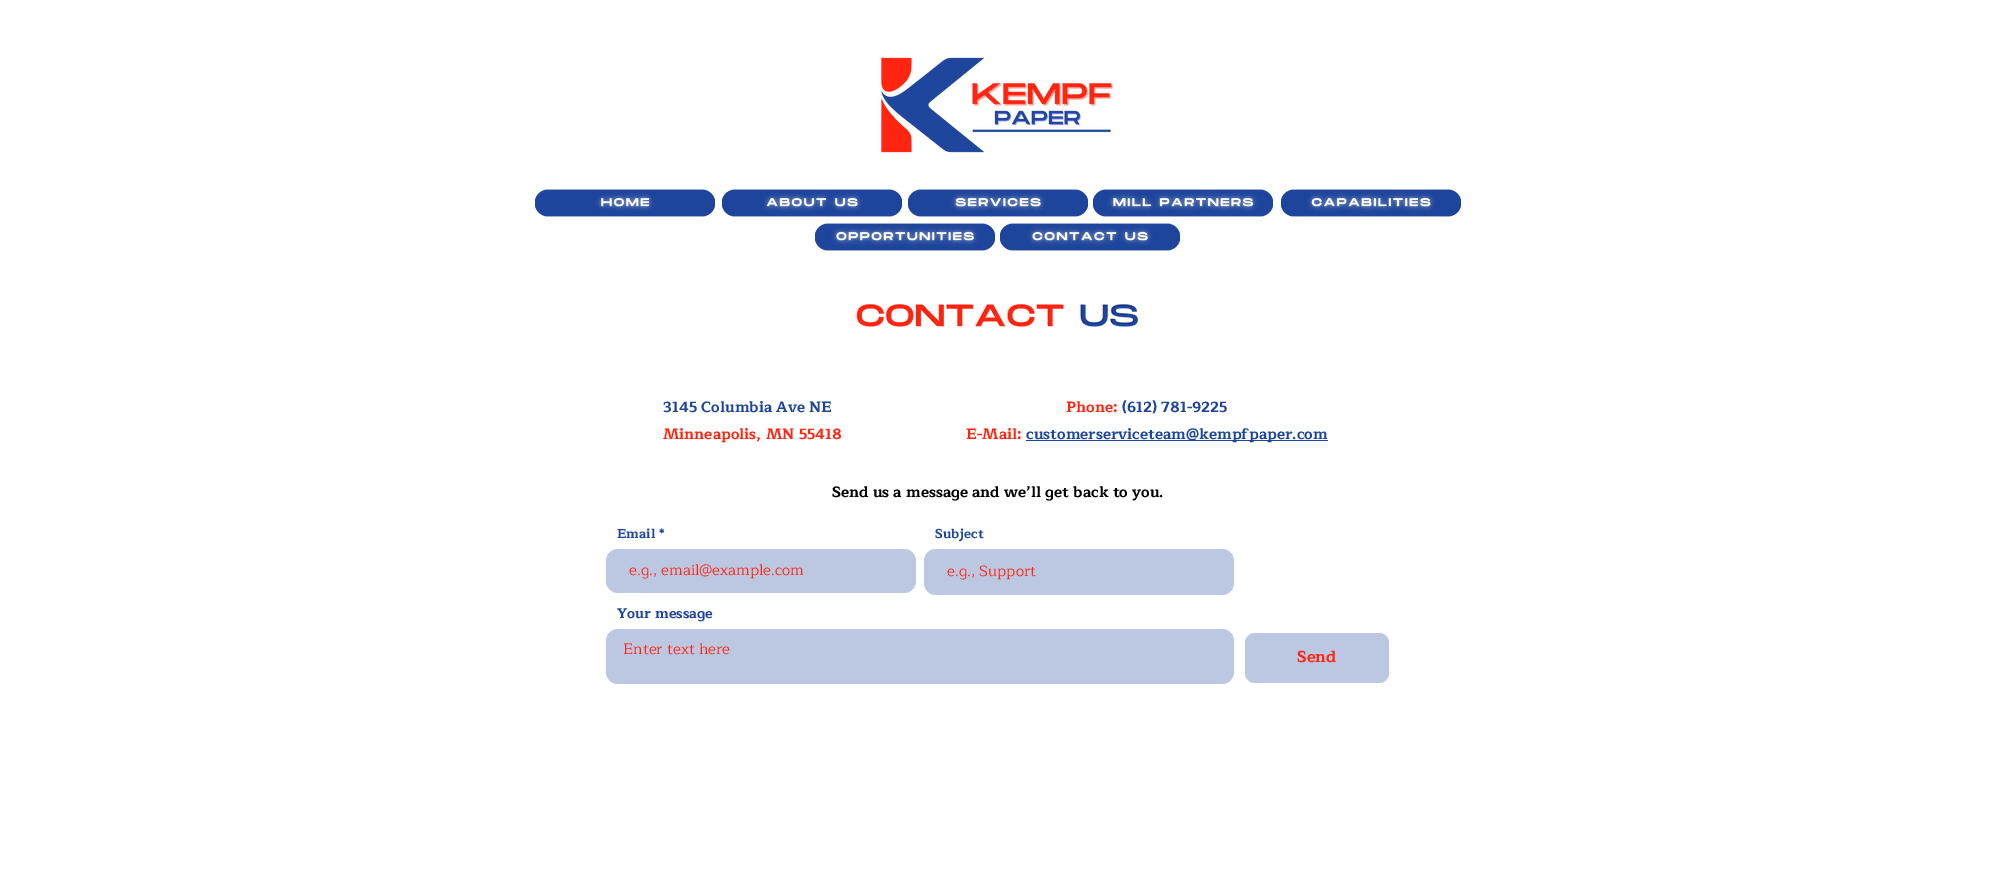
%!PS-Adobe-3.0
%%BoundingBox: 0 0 1996 880
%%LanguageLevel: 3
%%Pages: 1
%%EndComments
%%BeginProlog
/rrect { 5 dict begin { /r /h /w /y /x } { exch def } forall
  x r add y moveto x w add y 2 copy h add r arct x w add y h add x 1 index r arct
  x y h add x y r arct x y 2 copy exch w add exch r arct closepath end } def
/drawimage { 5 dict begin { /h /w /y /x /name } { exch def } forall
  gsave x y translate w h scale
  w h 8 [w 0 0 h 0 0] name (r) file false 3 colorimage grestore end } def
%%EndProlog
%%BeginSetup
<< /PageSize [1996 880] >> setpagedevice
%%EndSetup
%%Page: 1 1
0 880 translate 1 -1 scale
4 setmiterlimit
1 setgray
0 0 1996 880 rectfill
(images/1.raw) 881 57 232 96 drawimage
(images/2.raw) 535 189 180 28 drawimage
(images/3.raw) 722 189 180 28 drawimage
(images/4.raw) 908 189 180 28 drawimage
(images/5.raw) 1093 189 180 28 drawimage
(images/6.raw) 1281 189 180 28 drawimage
(images/7.raw) 815 223 180 28 drawimage
(images/8.raw) 1000 223 180 28 drawimage
(images/9.raw) 855 303 283 24 drawimage
0.118 0.271 0.612 setrgbcolor
1026 440 302 1 rectfill
0.737 0.78 0.882 setrgbcolor
606 549 310 44 12 rrect fill
924 549 310 46 12 rrect fill
606 629 628 55 12 rrect fill
1245 633 144 50 10 rrect fill
/Maitree-Bold [15 0 0 -15 0 0] selectfont
0.118 0.271 0.612 setrgbcolor
663 412 moveto (3145 Columbia Ave NE) show
1 0.145 0.067 setrgbcolor
663 439 moveto (Minneapolis, MN 55418) show
1066 412 moveto (Phone:) show
0.118 0.271 0.612 setrgbcolor
1122 412 moveto (\(612\) 781-9225) show
1 0.145 0.067 setrgbcolor
966 439 moveto (E-Mail:) show
0.118 0.271 0.612 setrgbcolor
1026 439 moveto (customerserviceteam@kempfpaper.com) show
0 setgray
832 497 moveto (Send us a message and we’ll get back to you.) show
/Maitree-Bold [13 0 0 -13 0 0] selectfont
0.118 0.271 0.612 setrgbcolor
617 538 moveto (Email *) show
/Maitree-Regular [15 0 0 -15 0 0] selectfont
1 0.145 0.067 setrgbcolor
629 575 moveto (e.g., email@example.com) show
/Maitree-Bold [13 0 0 -13 0 0] selectfont
0.118 0.271 0.612 setrgbcolor
935 538 moveto (Subject) show
/Maitree-Regular [15 0 0 -15 0 0] selectfont
1 0.145 0.067 setrgbcolor
947 576 moveto (e.g., Support) show
/Maitree-Bold [14 0 0 -14 0 0] selectfont
0.118 0.271 0.612 setrgbcolor
617 618 moveto (Your message) show
/Maitree-Regular [15 0 0 -15 0 0] selectfont
1 0.145 0.067 setrgbcolor
623 654 moveto (Enter text here) show
/Maitree-Bold [16 0 0 -16 0 0] selectfont
1297 662 moveto (Send) show
showpage
%%EOF
